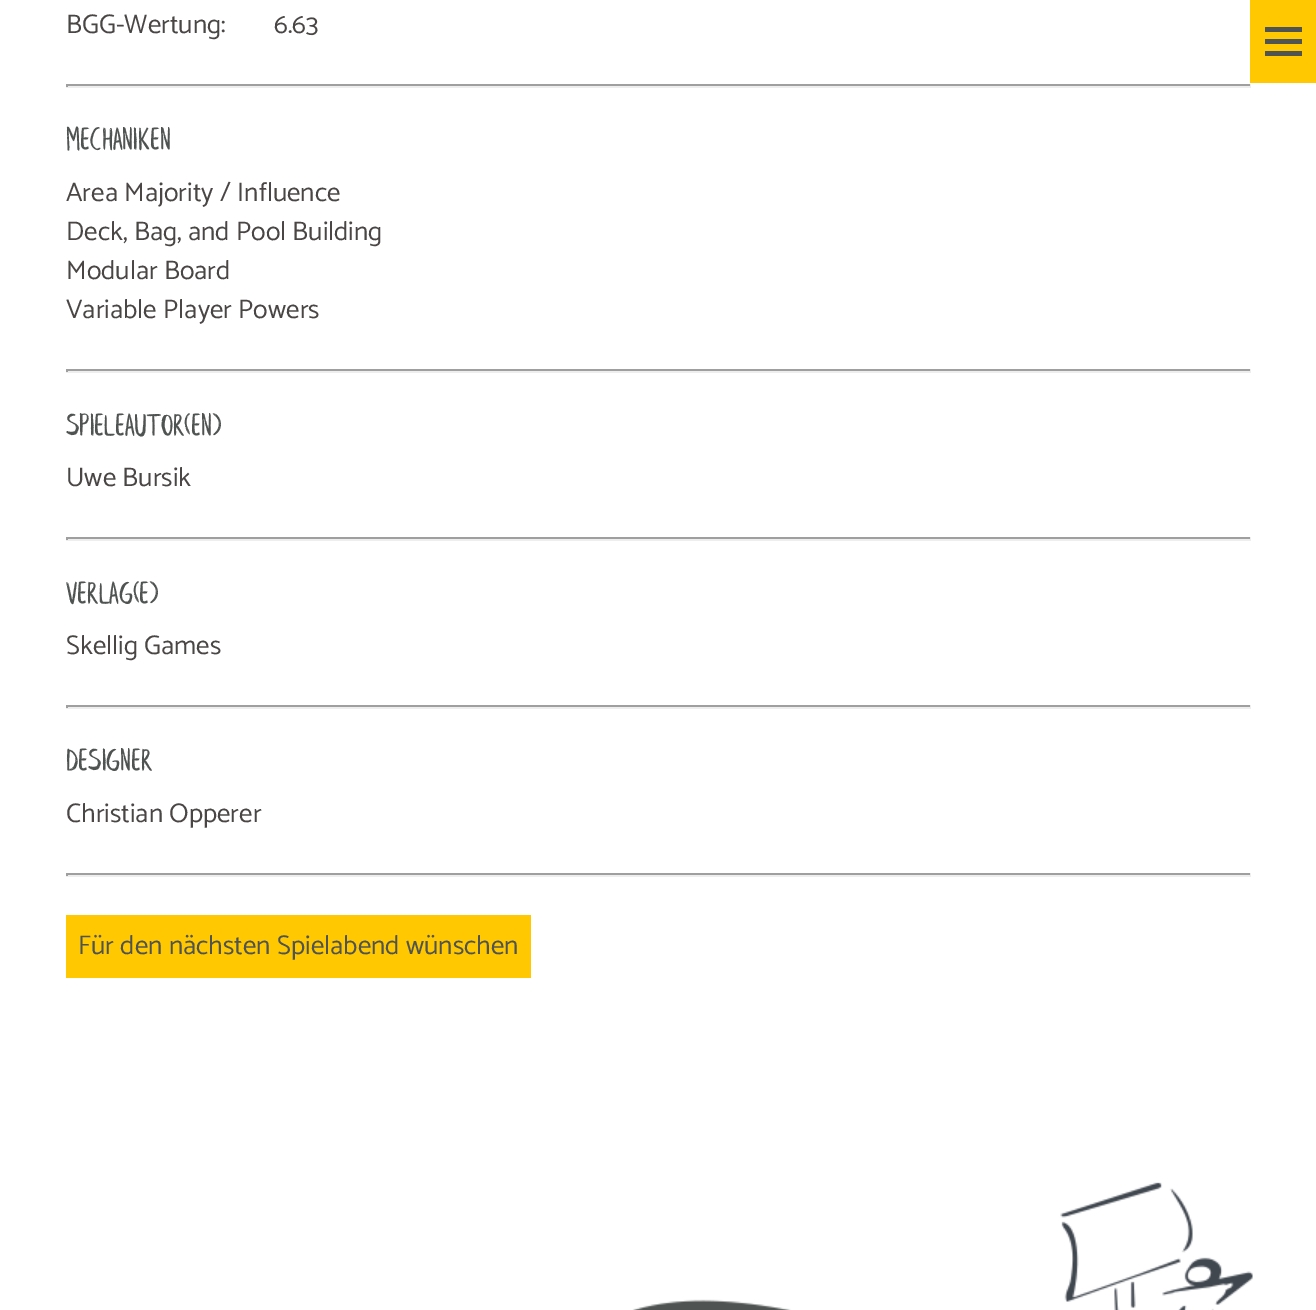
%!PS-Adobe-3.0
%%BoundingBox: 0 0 1316 1310
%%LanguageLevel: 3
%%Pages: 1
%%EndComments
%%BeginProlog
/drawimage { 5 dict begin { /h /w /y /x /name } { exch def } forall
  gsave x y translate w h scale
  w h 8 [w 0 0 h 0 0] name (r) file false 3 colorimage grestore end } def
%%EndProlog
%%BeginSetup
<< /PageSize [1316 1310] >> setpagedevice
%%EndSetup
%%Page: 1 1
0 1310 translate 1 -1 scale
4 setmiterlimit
1 setgray
0 0 1316 1310 rectfill
0.624 setgray
66 84 1185 2 rectfill
0.933 setgray
1250 84 1 3 rectfill
66 86 1185 2 rectfill
0.624 setgray
66 84 2 3 rectfill
66 369 1185 2 rectfill
0.933 setgray
1250 369 1 3 rectfill
66 371 1185 2 rectfill
0.624 setgray
66 369 2 3 rectfill
66 537 1185 2 rectfill
0.933 setgray
1250 537 1 3 rectfill
66 539 1185 2 rectfill
0.624 setgray
66 537 2 3 rectfill
66 705 1185 2 rectfill
0.933 setgray
1250 705 1 3 rectfill
66 707 1185 2 rectfill
0.624 setgray
66 705 2 3 rectfill
66 873 1185 2 rectfill
0.933 setgray
1250 873 1 3 rectfill
66 875 1185 2 rectfill
0.624 setgray
66 873 2 3 rectfill
1 0.784 0 setrgbcolor
66 915 465 63 rectfill
1250 0 66 83 rectfill
0.31 0.325 0.322 setrgbcolor
1265 39 37 5 rectfill
1265 27 37 5 rectfill
1265 51 37 5 rectfill
(images/1.raw) 0 1173 1316 137 drawimage
/Catamaran-Thin [27 0 0 -27 0 0] selectfont
0.29 0.275 0.275 setrgbcolor
66 33 moveto (BGG-Wertung:) show
274 33 moveto (6.63) show
/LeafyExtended-Regular [32.5 0 0 -32.5 0 0] selectfont
0.31 0.325 0.322 setrgbcolor
66 150 moveto (MECHANIKEN) show
/Catamaran-Thin [27 0 0 -27 0 0] selectfont
0.29 0.275 0.275 setrgbcolor
66 201 moveto (Area Majority / Influence) show
66 240 moveto (Deck, Bag, and Pool Building) show
66 279 moveto (Modular Board) show
66 318 moveto (Variable Player Powers) show
/LeafyExtended-Regular [32.5 0 0 -32.5 0 0] selectfont
0.31 0.325 0.322 setrgbcolor
66 436 moveto (SPIELEAUTOR\(EN\)) show
/Catamaran-Thin [27 0 0 -27 0 0] selectfont
0.29 0.275 0.275 setrgbcolor
66 486 moveto (Uwe Bursik) show
/LeafyExtended-Regular [32.5 0 0 -32.5 0 0] selectfont
0.31 0.325 0.322 setrgbcolor
66 604 moveto (VERLAG\(E\)) show
/Catamaran-Thin [27 0 0 -27 0 0] selectfont
0.29 0.275 0.275 setrgbcolor
66 654 moveto (Skellig Games) show
/LeafyExtended-Regular [32.5 0 0 -32.5 0 0] selectfont
0.31 0.325 0.322 setrgbcolor
66 771 moveto (DESIGNER) show
/Catamaran-Thin [27 0 0 -27 0 0] selectfont
0.29 0.275 0.275 setrgbcolor
66 822 moveto (Christian Opperer) show
0.31 0.325 0.322 setrgbcolor
78 954 moveto (Für den nächsten Spielabend wünschen) show
showpage
%%EOF
